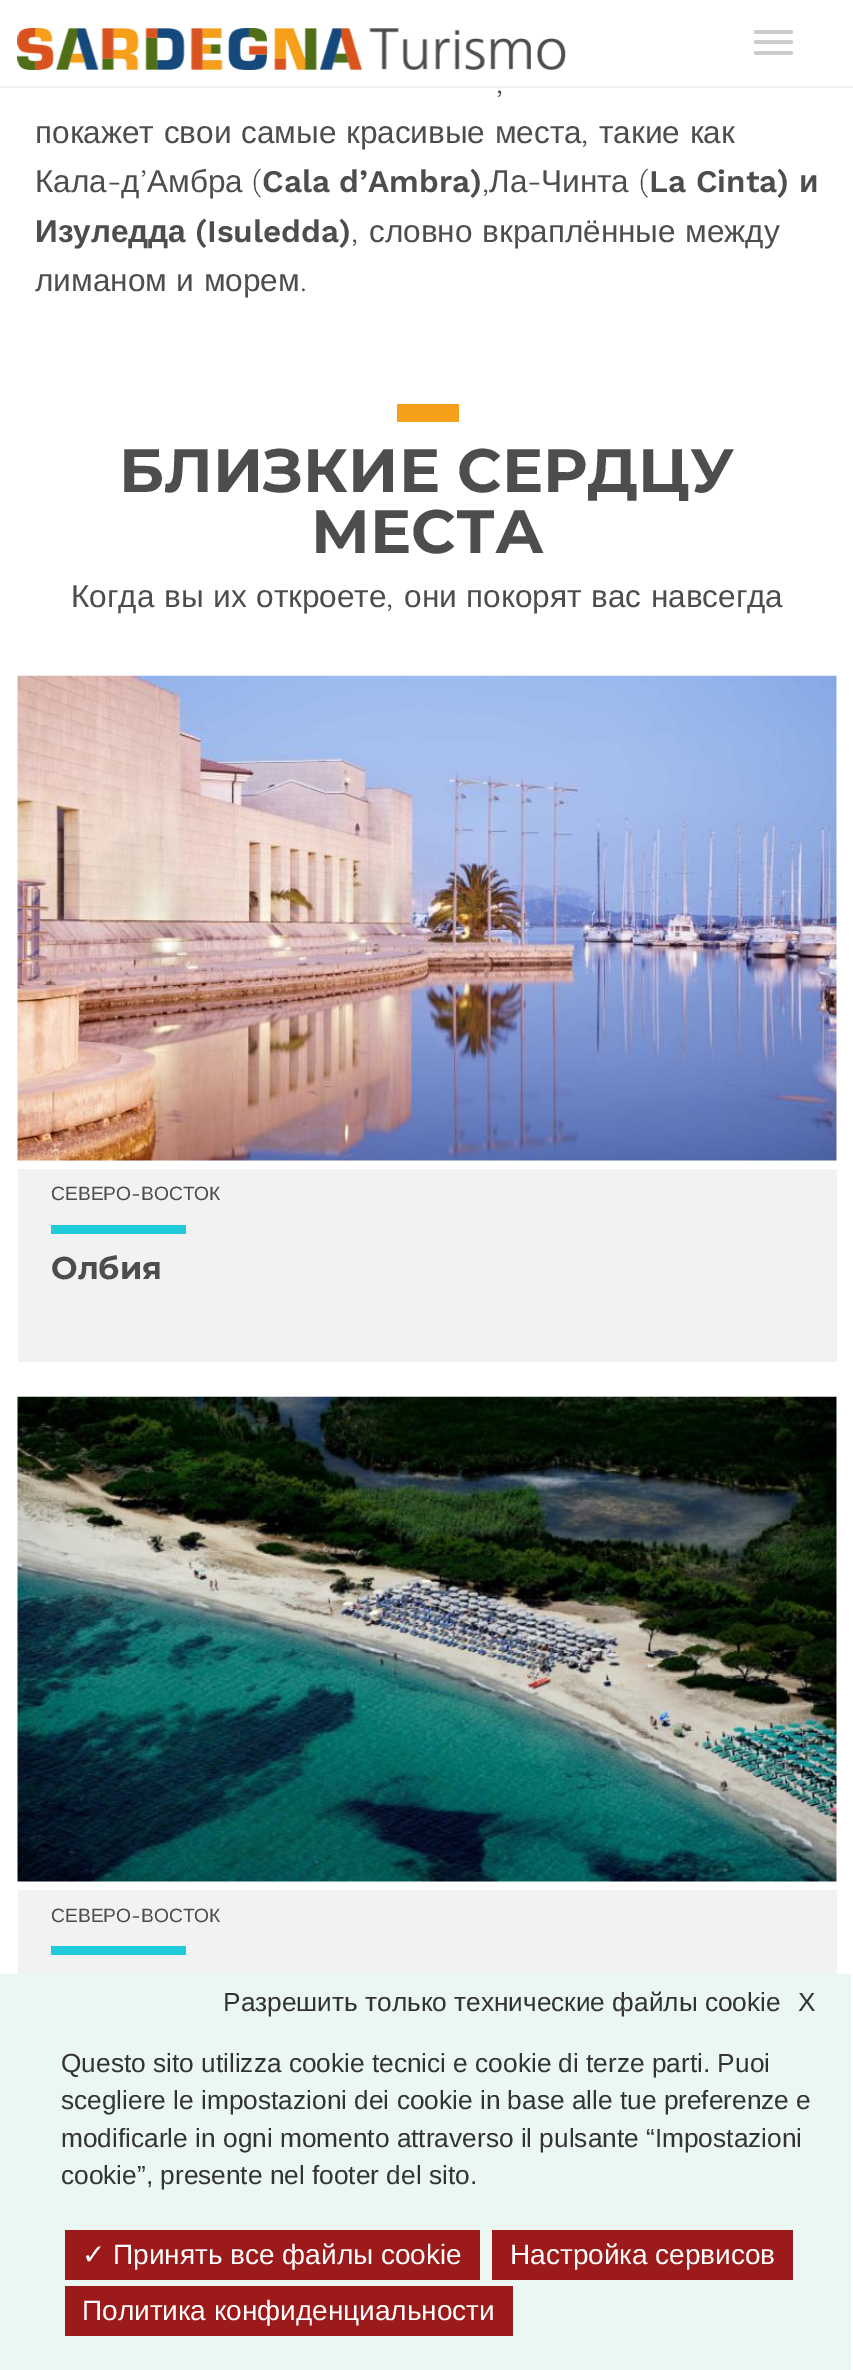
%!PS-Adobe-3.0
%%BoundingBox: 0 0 853 2370
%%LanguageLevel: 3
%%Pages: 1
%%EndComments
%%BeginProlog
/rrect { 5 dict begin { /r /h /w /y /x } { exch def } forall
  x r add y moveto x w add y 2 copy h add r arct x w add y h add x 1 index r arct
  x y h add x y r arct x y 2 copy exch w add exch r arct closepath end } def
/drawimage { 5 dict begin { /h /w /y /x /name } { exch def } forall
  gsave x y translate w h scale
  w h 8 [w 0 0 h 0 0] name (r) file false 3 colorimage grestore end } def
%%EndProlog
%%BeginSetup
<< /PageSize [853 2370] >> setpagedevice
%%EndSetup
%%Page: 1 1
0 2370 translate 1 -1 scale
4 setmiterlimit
1 setgray
0 0 853 2370 rectfill
0.937 setgray
0 86 853 2 rectfill
(images/1.raw) 17 28 549 42 drawimage
0.8 setgray
754 30 39 4 2 rrect fill
754 40 39 4 2 rrect fill
754 51 39 4 2 rrect fill
0.965 0.624 0.102 setrgbcolor
397 404 62 18 rectfill
(images/2.raw) 17 675 820 486 drawimage
0.953 0.949 0.953 setrgbcolor
18 1169 819 193 rectfill
0.122 0.796 0.851 setrgbcolor
51 1225 135 9 rectfill
(images/3.raw) 17 1396 820 486 drawimage
0.953 0.949 0.953 setrgbcolor
18 1890 819 84 rectfill
0.122 0.796 0.851 setrgbcolor
51 1946 135 9 rectfill
0.922 0.969 0.953 setrgbcolor
0 1974 851 396 rectfill
0.612 0.102 0.102 setrgbcolor
65 2230 415 50 rectfill
492 2230 301 50 rectfill
65 2286 448 50 rectfill
/WorkSans-Light [31.5 0 0 -31.5 0 0] selectfont
0.302 setgray
496 93 moveto (,) show
/LiberationSans-Regular [31.5 0 0 -31.5 0 0] selectfont
35 143 moveto 1 0 32 (покажет свои самые красивые места) widthshow
/WorkSans-Light [31.5 0 0 -31.5 0 0] selectfont
581 143 moveto (,) show
/LiberationSans-Regular [31.5 0 0 -31.5 0 0] selectfont
599 143 moveto 1 0 32 (такие как) widthshow
35 192 moveto (Кала) show
/WorkSans-Light [31.5 0 0 -31.5 0 0] selectfont
107 192 moveto (-) show
/LiberationSans-Regular [31.5 0 0 -31.5 0 0] selectfont
121 192 moveto (д) show
/WorkSans-Light [31.5 0 0 -31.5 0 0] selectfont
140 192 moveto (’) show
/LiberationSans-Regular [31.5 0 0 -31.5 0 0] selectfont
147 192 moveto (Амбра) show
/WorkSans-Light [31.5 0 0 -31.5 0 0] selectfont
252 192 moveto (\() show
/WorkSans-SemiBold [31.5 0 0 -31.5 0 0] selectfont
262 192 moveto (Cala d’Ambra\)) show
/LiberationSans-Regular [31.5 0 0 -31.5 0 0] selectfont
489 192 moveto (Ла) show
/WorkSans-Light [31.5 0 0 -31.5 0 0] selectfont
527 192 moveto (-) show
/LiberationSans-Regular [31.5 0 0 -31.5 0 0] selectfont
541 192 moveto (Чинта) show
/WorkSans-Light [31.5 0 0 -31.5 0 0] selectfont
639 192 moveto (\() show
/WorkSans-SemiBold [31.5 0 0 -31.5 0 0] selectfont
649 192 moveto (La Cinta\)) show
/LiberationSans-Bold [31.5 0 0 -31.5 0 0] selectfont
799 192 moveto (и) show
/WorkSans-Light [31.5 0 0 -31.5 0 0] selectfont
482 192 moveto (,) show
/LiberationSans-Bold [31.5 0 0 -31.5 0 0] selectfont
35 242 moveto (Изуледда) show
/WorkSans-SemiBold [31.5 0 0 -31.5 0 0] selectfont
195 242 moveto (\(Isuledda\)) show
/WorkSans-Light [31.5 0 0 -31.5 0 0] selectfont
351 242 moveto (,) show
/LiberationSans-Regular [31.5 0 0 -31.5 0 0] selectfont
369 242 moveto 1 0 32 (словно вкраплённые между) widthshow
35 291 moveto 1 0 32 (лиманом и морем) widthshow
/WorkSans-Light [31.5 0 0 -31.5 0 0] selectfont
300 291 moveto (.) show
/Montserrat-Thin [61.25 0 0 -61.25 0 0] selectfont
119 492 moveto (БЛИЗКИЕ СЕРДЦУ) show
311 553 moveto (МЕСТА) show
/LiberationSans-Regular [31.5 0 0 -31.5 0 0] selectfont
71 607 moveto 1 0 32 (Когда вы их откроете) widthshow
/WorkSans-Light [31.5 0 0 -31.5 0 0] selectfont
386 607 moveto (,) show
/LiberationSans-Regular [31.5 0 0 -31.5 0 0] selectfont
404 607 moveto 1 0 32 (они покорят вас навсегда) widthshow
/LiberationSans-Regular [19.25 0 0 -19.25 0 0] selectfont
51 1200 moveto (СЕВЕРО) show
/WorkSans-Regular [19.25 0 0 -19.25 0 0] selectfont
131 1200 moveto (-) show
/LiberationSans-Regular [19.25 0 0 -19.25 0 0] selectfont
141 1200 moveto (ВОСТОК) show
/Montserrat-Thin [31.5 0 0 -31.5 0 0] selectfont
51 1279 moveto (Олбия) show
/LiberationSans-Regular [19.25 0 0 -19.25 0 0] selectfont
51 1922 moveto (СЕВЕРО) show
/WorkSans-Regular [19.25 0 0 -19.25 0 0] selectfont
131 1922 moveto (-) show
/LiberationSans-Regular [19.25 0 0 -19.25 0 0] selectfont
141 1922 moveto (ВОСТОК) show
/LiberationSans-Regular [26.25 0 0 -26.25 0 0] selectfont
0.2 setgray
223 2011 moveto (Разрешить только технические файлы cookie) show
798 2011 moveto (X) show
61 2072 moveto (Questo sito utilizza cookie tecnici e cookie di terze parti. Puoi) show
61 2109 moveto (scegliere le impostazioni dei cookie in base alle tue preferenze e) show
61 2147 moveto (modificarle in ogni momento attraverso il pulsante “Impostazioni) show
61 2184 moveto (cookie”, presente nel footer del sito.) show
/DejaVuSans-Regular [28 0 0 -28 0 0] selectfont
1 setgray
82 2264 moveto (✓) show
/LiberationSans-Regular [28 0 0 -28 0 0] selectfont
113 2264 moveto (Принять все файлы cookie) show
510 2264 moveto (Настройка сервисов) show
82 2320 moveto (Политика конфиденциальности) show
showpage
%%EOF
